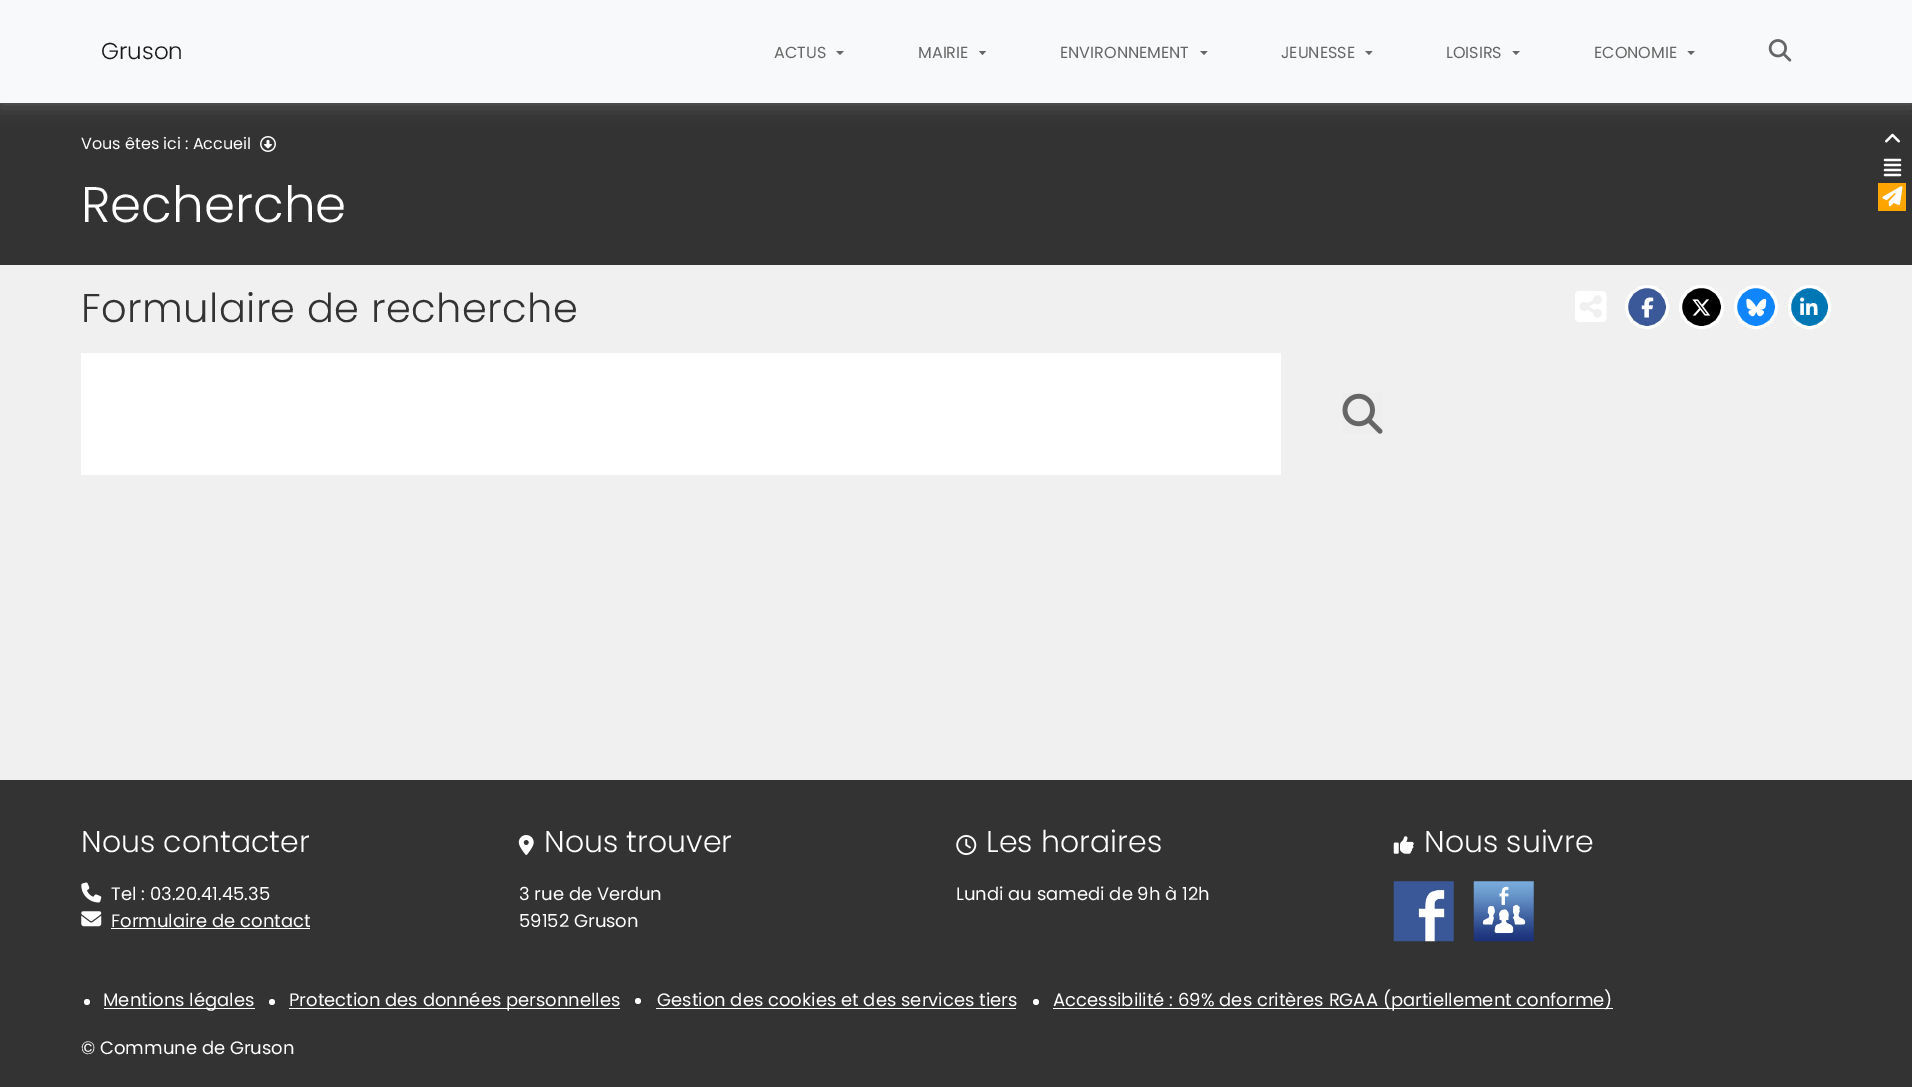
%!PS-Adobe-3.0
%%BoundingBox: 0 0 1912 1087
%%LanguageLevel: 3
%%Pages: 1
%%EndComments
%%BeginProlog
/setalpha { dup .setfillconstantalpha .setstrokeconstantalpha } def
/rrect { 5 dict begin { /r /h /w /y /x } { exch def } forall
  x r add y moveto x w add y 2 copy h add r arct x w add y h add x 1 index r arct
  x y h add x y r arct x y 2 copy exch w add exch r arct closepath end } def
/softshadow { 12 dict begin { /a /b /q /h /w /y /x } { exch def } forall gsave /was 0 def
  9 -2 -9 { dup b mul 4 div /e exch def 1 sub .425 mul 2.718 exch exp 1 add a .99 .min exch div /now exch def
    1 1 now sub 1 was sub div sub setalpha /was now def
    w h .min e 2 mul add 0 gt { x e sub y e sub w e 2 mul add h e 2 mul add
      q e add b .6 mul add w h .min 2 div e add .min 0 .max rrect fill } if } for grestore end } def
/drawimage { 5 dict begin { /h /w /y /x /name } { exch def } forall
  gsave x y translate w h scale
  w h 8 [w 0 0 h 0 0] name (r) file false 3 colorimage grestore end } def
%%EndProlog
%%BeginSetup
<< /PageSize [1912 1087] /PageUsesTransparency true >> setpagedevice
%%EndSetup
%%Page: 1 1
0 .pushpdf14devicefilter
0 1087 translate 1 -1 scale
4 setmiterlimit
0.941 setgray
0 0 1912 1087 rectfill
0.2 setgray
0 103 1912 162 rectfill
0.4 setgray
0 0 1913 103 0 9.5 1 softshadow
0.973 0.976 0.98 setrgbcolor
0 0 1912 103 rectfill
0.4 setgray
newpath 836 51 moveto 844 51 lineto 840 55 lineto closepath fill
newpath 979 51 moveto 986 51 lineto 982.5 55 lineto closepath fill
newpath 1200 51 moveto 1207.5 51 lineto 1204 55 lineto closepath fill
newpath 1365 51 moveto 1372.5 51 lineto 1369 55 lineto closepath fill
newpath 1512.5 51 moveto 1520 51 lineto 1516 55 lineto closepath fill
newpath 1687.5 51 moveto 1695 51 lineto 1691 55 lineto closepath fill
(images/1.raw) 1768 39 24 23 drawimage
(images/2.raw) 260 136 16 16 drawimage
(images/3.raw) 1575 291 32 31 drawimage
0.231 0.349 0.596 setrgbcolor
newpath 1647 307 20.5 0 360 arc closepath gsave fill grestore
1 setgray
3 setlinewidth
stroke
(images/4.raw) 1641 297 13 21 drawimage
0 setgray
1680.5 286.5 42 41 20.5 rrect gsave fill grestore
1 setgray
stroke
(images/5.raw) 1692 299 19 17 drawimage
0.067 0.522 0.996 setrgbcolor
newpath 1756 307 20.5 0 360 arc closepath gsave fill grestore
1 setgray
stroke
(images/6.raw) 1746 298 21 19 drawimage
0 0.467 0.71 setrgbcolor
1789.5 286.5 40 41 20 rrect gsave fill grestore
1 setgray
stroke
(images/7.raw) 1800 297 18 18 drawimage
(images/8.raw) 1885 133 15 10 drawimage
(images/9.raw) 1883 158 19 19 drawimage
1 0.647 0 setrgbcolor
1878 183 28 28 rectfill
(images/10.raw) 1882 186 21 21 drawimage
1 setgray
81 353 1200 122 rectfill
(images/11.raw) 1342 393 41 41 drawimage
0.2 setgray
0 780 1912 307 rectfill
(images/12.raw) 81 882 21 21 drawimage
(images/13.raw) 81 911 21 16 drawimage
1 setgray
111 928 199 1 rectfill
(images/14.raw) 518 835 16 20 drawimage
(images/15.raw) 956 835 21 20 drawimage
(images/16.raw) 1393 836 21 18 drawimage
(images/17.raw) 1393 881 61 61 drawimage
(images/18.raw) 1473 881 61 61 drawimage
newpath 87 1002 3 0 360 arc closepath fill
104 1008 151 1 rectfill
newpath 272 1002 3 0 360 arc closepath fill
289 1008 331 1 rectfill
newpath 638 1001 3 0 360 arc closepath fill
656 1008 360 1 rectfill
newpath 1036 1002 3 0 360 arc closepath fill
1053 1008 560 1 rectfill
/Poppins-Light [23 0 0 -23 0 0] selectfont
0.098 setgray
101 59 moveto (Gruson) show
/Poppins-Regular [16 0 0 -16 0 0] selectfont
0.4 setgray
774 58 moveto (ACTUS) show
918 58 moveto (MAIRIE) show
1060 58 moveto (ENVIRONNEMENT) show
1281 58 moveto (JEUNESSE) show
1446 58 moveto (LOISIRS) show
1594 58 moveto (ECONOMIE) show
1 setgray
81 149 moveto (Vous êtes ici : Accueil) show
/Poppins-Light [50 0 0 -50 0 0] selectfont
81 222 moveto (Recherche) show
/Poppins-Light [40 0 0 -40 0 0] selectfont
0.2 setgray
81 322 moveto 0.4 0 (Formulaire de recherche) ashow
/Poppins-Light [30 0 0 -30 0 0] selectfont
1 setgray
81 852 moveto (Nous contacter) show
/Poppins-Regular [18 0 0 -18 0 0] selectfont
111 900 moveto (Tel : 03.20.41.45.35) show
111 927 moveto (Formulaire de contact) show
/Poppins-Light [30 0 0 -30 0 0] selectfont
544 852 moveto (Nous trouver) show
/Poppins-Regular [18 0 0 -18 0 0] selectfont
519 900 moveto (3 rue de Verdun) show
519 927 moveto (59152 Gruson) show
/Poppins-Light [30 0 0 -30 0 0] selectfont
986 852 moveto (Les horaires) show
/Poppins-Regular [18 0 0 -18 0 0] selectfont
956 900 moveto (Lundi au samedi de 9h à 12h) show
/Poppins-Light [30 0 0 -30 0 0] selectfont
1424 852 moveto (Nous suivre) show
/Poppins-Regular [18 0 0 -18 0 0] selectfont
103 1006 moveto (Mentions légales) show
289 1006 moveto (Protection des données personnelles) show
657 1006 moveto (Gestion des cookies et des services tiers) show
1053 1006 moveto (Accessibilité : 69% des critères RGAA \(partiellement conforme\)) show
81 1054 moveto (© Commune de Gruson) show
.poppdf14devicefilter showpage
%%EOF
